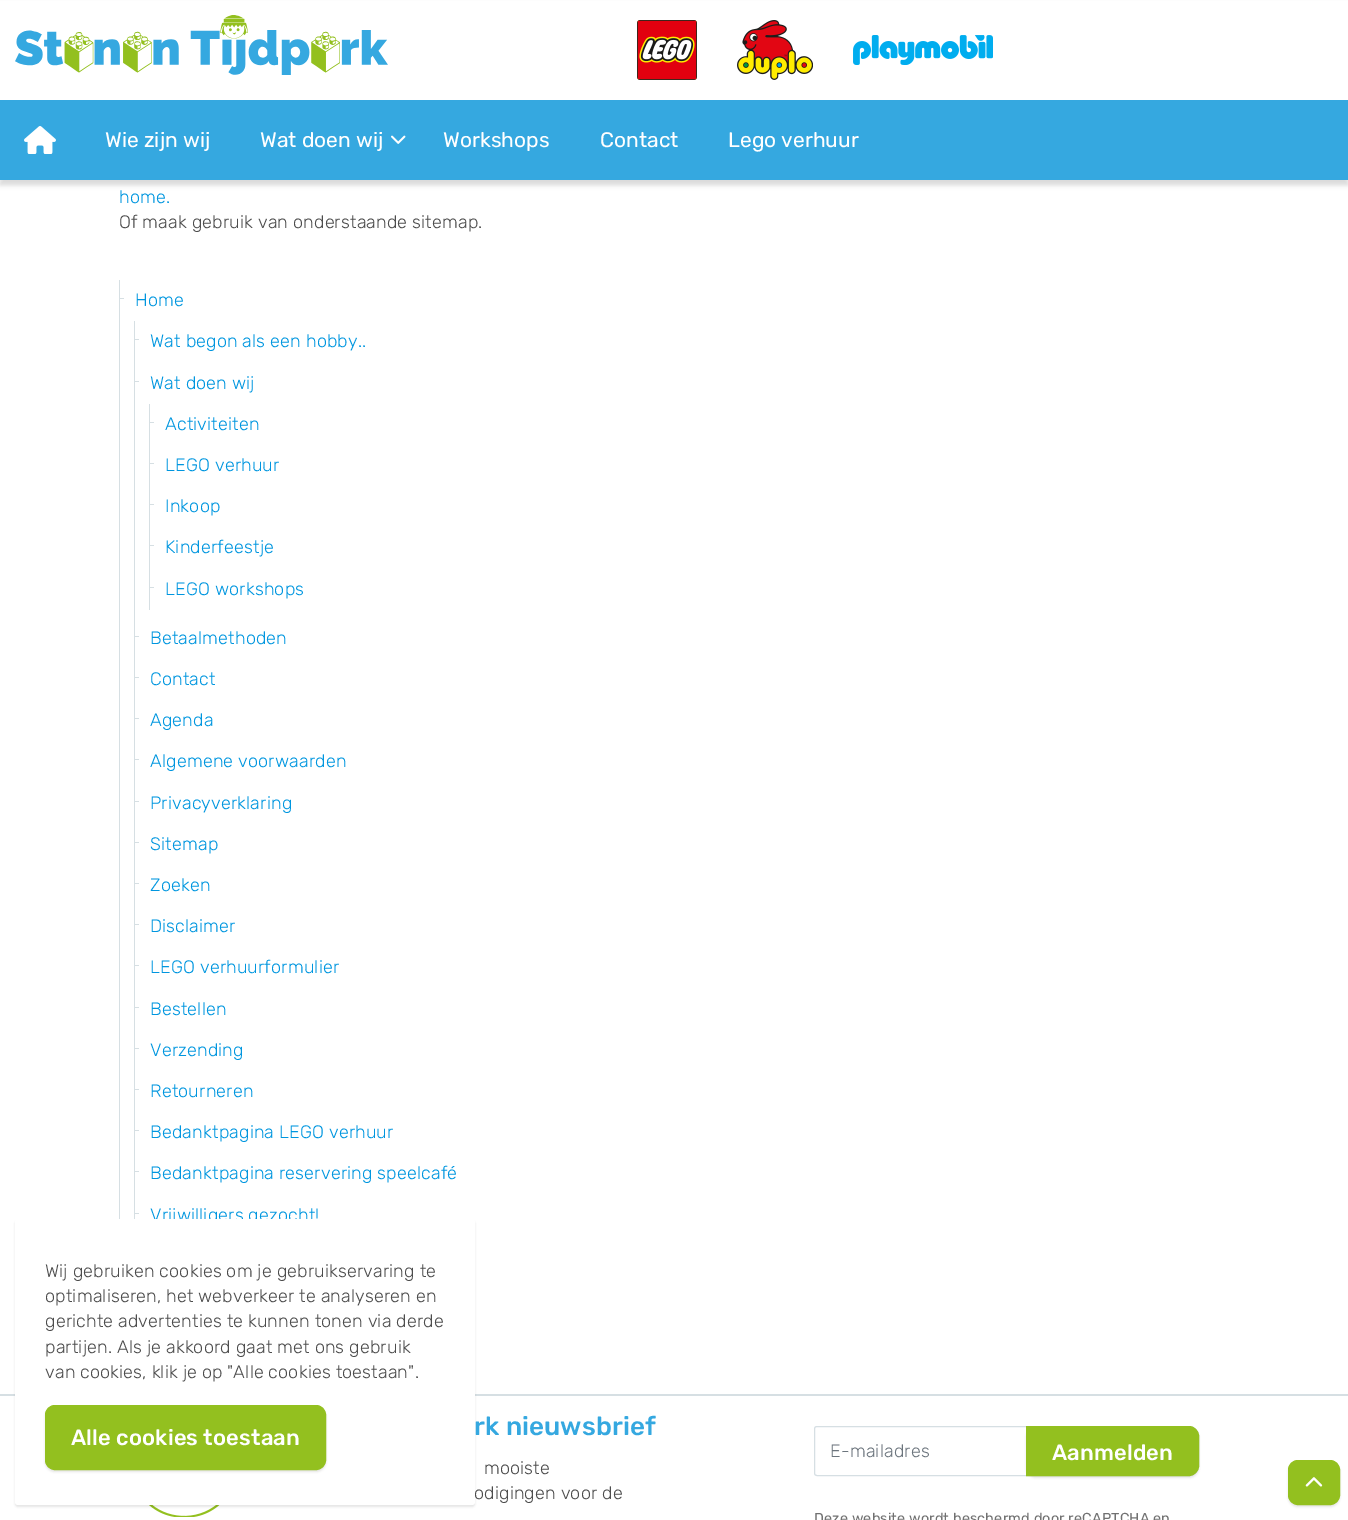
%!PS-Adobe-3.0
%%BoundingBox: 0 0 1348 1520
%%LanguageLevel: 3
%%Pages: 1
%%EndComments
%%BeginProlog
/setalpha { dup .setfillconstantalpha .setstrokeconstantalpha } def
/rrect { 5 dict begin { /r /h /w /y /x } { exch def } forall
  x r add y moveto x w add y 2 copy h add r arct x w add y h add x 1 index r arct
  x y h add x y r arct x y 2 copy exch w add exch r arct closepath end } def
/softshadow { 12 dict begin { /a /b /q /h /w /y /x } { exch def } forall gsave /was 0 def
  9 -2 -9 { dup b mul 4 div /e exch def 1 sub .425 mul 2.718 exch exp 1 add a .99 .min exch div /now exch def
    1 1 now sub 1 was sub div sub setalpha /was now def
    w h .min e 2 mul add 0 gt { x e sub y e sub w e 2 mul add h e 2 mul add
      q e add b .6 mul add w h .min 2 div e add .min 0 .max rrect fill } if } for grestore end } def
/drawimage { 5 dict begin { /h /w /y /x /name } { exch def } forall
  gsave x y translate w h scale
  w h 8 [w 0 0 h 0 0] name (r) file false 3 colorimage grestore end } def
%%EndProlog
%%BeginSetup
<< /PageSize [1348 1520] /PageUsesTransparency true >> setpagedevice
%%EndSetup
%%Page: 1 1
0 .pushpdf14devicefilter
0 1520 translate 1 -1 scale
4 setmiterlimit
1 setgray
0 0 1348 1520 rectfill
0 setgray
0 5 1348 180 0 2.5 0.15 softshadow
1 setgray
0 1 1348 99 rectfill
(images/1.raw) 15 15 373 60 drawimage
(images/2.raw) 637 20 60 60 drawimage
(images/3.raw) 737 20 76 60 drawimage
(images/4.raw) 853 35 140 30 drawimage
0.208 0.659 0.878 setrgbcolor
0 100 1348 80 rectfill
(images/5.raw) 24 126 32 28 drawimage
(images/6.raw) 391 135 15 9 drawimage
0.839 0.875 0.89 setrgbcolor
119 280 1 939 rectfill
119 298 5 1 rectfill
134 321 1 898 rectfill
134 339 5 1 rectfill
134 381 5 1 rectfill
149 404 1 206 rectfill
149 422 5 1 rectfill
149 463 5 1 rectfill
149 504 5 1 rectfill
149 545 5 1 rectfill
149 587 5 1 rectfill
134 636 5 1 rectfill
134 677 5 1 rectfill
134 718 5 1 rectfill
134 759 5 1 rectfill
134 801 5 1 rectfill
134 842 5 1 rectfill
134 883 5 1 rectfill
134 924 5 1 rectfill
134 965 5 1 rectfill
134 1007 5 1 rectfill
134 1048 5 1 rectfill
134 1089 5 1 rectfill
134 1130 5 1 rectfill
134 1171 5 1 rectfill
134 1213 5 1 rectfill
0 1394 1348 2 rectfill
(images/7.raw) 149 1505 71 12 drawimage
newpath 817 1426.5 moveto 1189 1426.5 lineto 1194 1426.5 1198.5 1431 1198.5 1436 curveto 1198.5 1466 lineto 1198.5 1471 1194 1475.5 1189 1475.5 curveto 817 1475.5 lineto 815.5 1475.5 814.5 1474.5 814.5 1473 curveto 814.5 1429 lineto 814.5 1427.5 815.5 1426.5 817 1426.5 curveto closepath stroke
0 setgray
1026 1428 173 50 10 1 0.1 softshadow
0.576 0.753 0.122 setrgbcolor
newpath 1026.5 1426.5 moveto 1189 1426.5 lineto 1194 1426.5 1198.5 1431 1198.5 1436 curveto 1198.5 1466 lineto 1198.5 1471 1194 1475.5 1189 1475.5 curveto 1026.5 1475.5 lineto closepath gsave fill grestore
stroke
0 setgray
1288 1462 52 45 10 1 0.1 softshadow
0.576 0.753 0.122 setrgbcolor
1288.5 1460.5 51 44 9.5 rrect gsave fill grestore
stroke
(images/8.raw) 1305 1477 18 10 drawimage
0 setgray
15 1221 460 286 3 1 0.1 softshadow
/Rubik-Regular [21 0 0 -21 0 0] selectfont
1 setgray
105 147 moveto (Wie zijn wij) show
260 147 moveto (Wat doen wij) show
443 147 moveto (Workshops) show
600 147 moveto (Contact) show
728 147 moveto (Lego verhuur) show
/Rubik-Light [18 0 0 -18 0 0] selectfont
0 0.588 0.875 setrgbcolor
119 203 moveto 0.15 0 (home.) ashow
0.302 setgray
119 228 moveto 0.15 0 (Of maak gebruik van onderstaande sitemap.) ashow
0 0.588 0.875 setrgbcolor
135 306 moveto 0.15 0 (Home) ashow
150 347 moveto 0.15 0 (Wat begon als een hobby..) ashow
150 389 moveto 0.15 0 (Wat doen wij) ashow
165 430 moveto 0.15 0 (Activiteiten) ashow
165 471 moveto 0.15 0 (LEGO verhuur) ashow
165 512 moveto 0.15 0 (Inkoop) ashow
165 553 moveto 0.15 0 (Kinderfeestje) ashow
165 595 moveto 0.15 0 (LEGO workshops) ashow
150 644 moveto 0.15 0 (Betaalmethoden) ashow
150 685 moveto 0.15 0 (Contact) ashow
150 726 moveto 0.15 0 (Agenda) ashow
150 767 moveto 0.15 0 (Algemene voorwaarden) ashow
150 809 moveto 0.15 0 (Privacyverklaring) ashow
150 850 moveto 0.15 0 (Sitemap) ashow
150 891 moveto 0.15 0 (Zoeken) ashow
150 932 moveto 0.15 0 (Disclaimer) ashow
150 973 moveto 0.15 0 (LEGO verhuurformulier) ashow
150 1015 moveto 0.15 0 (Bestellen) ashow
150 1056 moveto 0.15 0 (Verzending) ashow
150 1097 moveto 0.15 0 (Retourneren) ashow
150 1138 moveto 0.15 0 (Bedanktpagina LEGO verhuur) ashow
150 1179 moveto 0.15 0 (Bedanktpagina reservering speelcafé) ashow
150 1221 moveto 0.15 0 (Vrijwilligers gezocht!) ashow
/Rubik-Medium [26 0 0 -26 0 0] selectfont
0.208 0.659 0.878 setrgbcolor
474 1435 moveto 0.15 0 (rk nieuwsbrief) ashow
/Rubik-Light [18 0 0 -18 0 0] selectfont
0.302 setgray
484 1474 moveto 0.15 0 (mooiste) ashow
474 1499 moveto 0.15 0 (odigingen voor de) ashow
0.424 0.459 0.49 setrgbcolor
830 1457 moveto 0.15 0 (E-mailadres) ashow
/Rubik-Medium [22 0 0 -22 0 0] selectfont
1 setgray
1052 1460 moveto 0.15 0 (Aanmelden) ashow
/Rubik-Regular [14.4 0 0 -14.4 0 0] selectfont
0.443 setgray
814 1523 moveto 0.15 0 (Deze website wordt beschermd door reCAPTCHA en) ashow
1 setgray
15 1219 460 286 3 rrect fill
/Rubik-Light [18 0 0 -18 0 0] selectfont
0.302 setgray
45 1277 moveto 0.15 0 (Wij gebruiken cookies om je gebruikservaring te) ashow
45 1302 moveto 0.15 0 (optimaliseren, het webverkeer te analyseren en) ashow
45 1327 moveto 0.15 0 (gerichte advertenties te kunnen tonen via derde) ashow
45 1353 moveto 0.15 0 (partijen. Als je akkoord gaat met ons gebruik) ashow
45 1378 moveto 0.15 0 (van cookies, klik je op "Alle cookies toestaan".) ashow
0 setgray
45 1407 281 65 10 1 0.1 softshadow
0.576 0.753 0.122 setrgbcolor
45.5 1405.5 280 64 9.5 rrect gsave fill grestore
stroke
/Rubik-Medium [22 0 0 -22 0 0] selectfont
1 setgray
71 1445 moveto 0.15 0 (Alle cookies toestaan) ashow
.poppdf14devicefilter showpage
%%EOF
